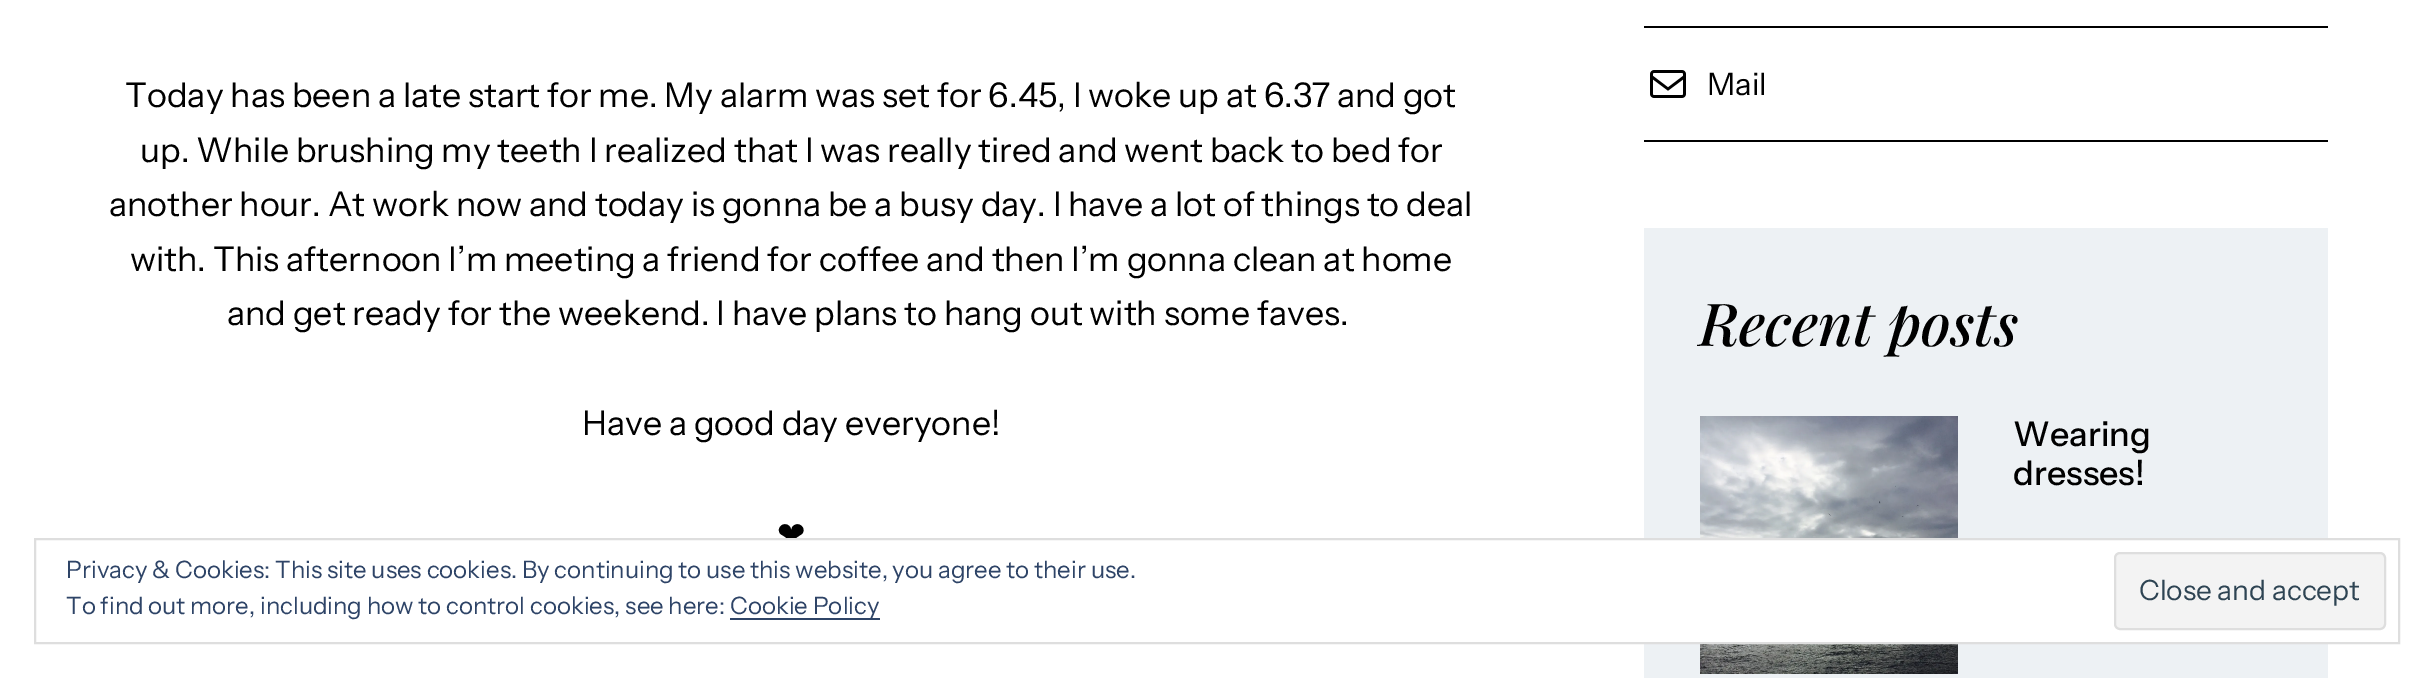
%!PS-Adobe-3.0
%%BoundingBox: 0 0 2433 678
%%LanguageLevel: 3
%%Pages: 1
%%EndComments
%%BeginProlog
/rrect { 5 dict begin { /r /h /w /y /x } { exch def } forall
  x r add y moveto x w add y 2 copy h add r arct x w add y h add x 1 index r arct
  x y h add x y r arct x y 2 copy exch w add exch r arct closepath end } def
/drawimage { 5 dict begin { /h /w /y /x /name } { exch def } forall
  gsave x y translate w h scale
  w h 8 [w 0 0 h 0 0] name (r) file false 3 colorimage grestore end } def
%%EndProlog
%%BeginSetup
<< /PageSize [2433 678] >> setpagedevice
%%EndSetup
%%Page: 1 1
0 678 translate 1 -1 scale
4 setmiterlimit
1 setgray
0 0 2433 678 rectfill
0 setgray
1644 26 684 2 rectfill
1644 140 684 2 rectfill
(images/1.raw) 1650 70 36 28 drawimage
0.929 0.945 0.957 setrgbcolor
1644 228 684 450 rectfill
(images/2.raw) 1700 416 258 258 drawimage
/InstrumentSans-Regular [34 0 0 -34 0 0] selectfont
0 setgray
125 107 moveto (Today has been a late start for me. My alarm was set for 6.45, I woke up at 6.37 and got) show
140 162 moveto (up. While brushing my teeth I realized that I was really tired and went back to bed for) show
109 216 moveto (another hour. At work now and today is gonna be a busy day. I have a lot of things to deal) show
130 271 moveto (with. This afternoon I’m meeting a friend for coffee and then I’m gonna clean at home) show
227 325 moveto (and get ready for the weekend. I have plans to hang out with some faves.) show
582 435 moveto (Have a good day everyone!) show
/DejaVuSans-Regular [34 0 0 -34 0 0] selectfont
777 546 moveto (❤) show
/InstrumentSans-Regular [31 0 0 -31 0 0] selectfont
1707 95 moveto (Mail) show
/PlayfairDisplay-MediumItalic [59.25 0 0 -59.25 0 0] selectfont
1699 346 moveto (Recent posts) show
/InstrumentSans-Medium [34 0 0 -34 0 0] selectfont
2013 446 moveto (Wearing) show
2013 485 moveto (dresses!) show
1 setgray
788 540 1540 102 rectfill
0.871 setgray
2 setlinewidth
35 539 2364 104 rectstroke
/InstrumentSans-Regular [24 0 0 -24 0 0] selectfont
0.18 0.267 0.404 setrgbcolor
66 578 moveto (Privacy & Cookies: This site uses cookies. By continuing to use this website, you agree to their use.) show
66 614 moveto (To find out more, including how to control cookies, see here:) show
730 618 150 2 rectfill
730 614 moveto (Cookie Policy) show
0.953 setgray
2115 553 270 76 5 rrect gsave fill grestore
0.871 setgray
stroke
/InstrumentSans-Regular [28 0 0 -28 0 0] selectfont
0.18 0.267 0.325 setrgbcolor
2139 600 moveto (Close and accept) show
showpage
%%EOF
